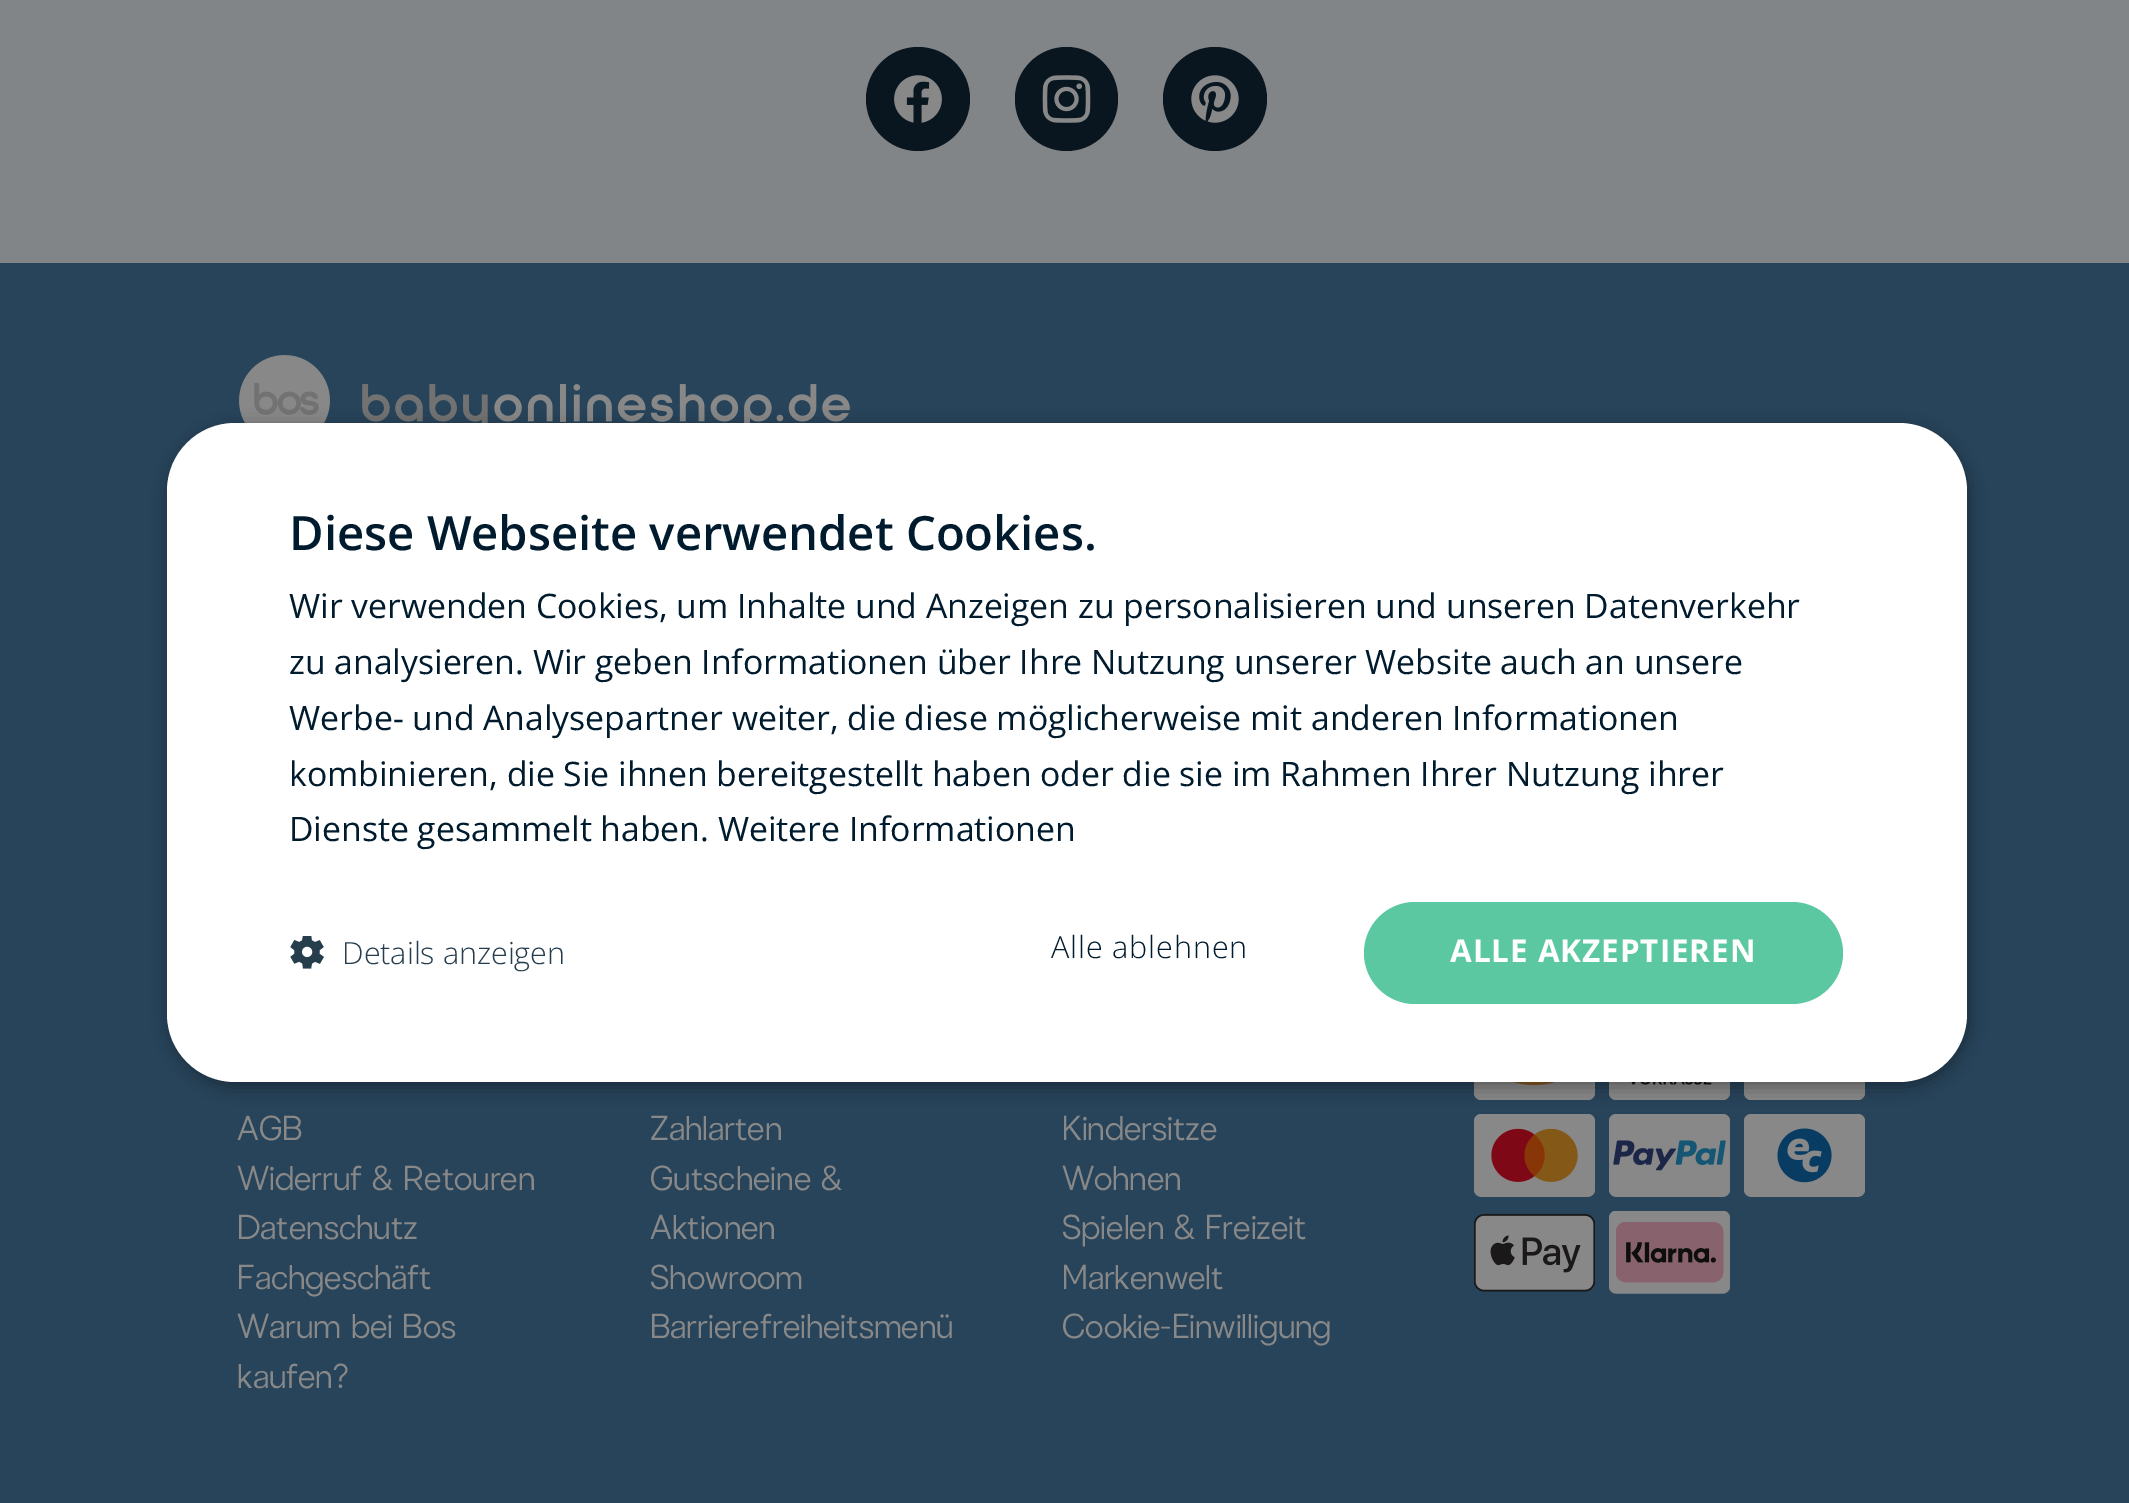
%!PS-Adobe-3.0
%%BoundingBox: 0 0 2129 1503
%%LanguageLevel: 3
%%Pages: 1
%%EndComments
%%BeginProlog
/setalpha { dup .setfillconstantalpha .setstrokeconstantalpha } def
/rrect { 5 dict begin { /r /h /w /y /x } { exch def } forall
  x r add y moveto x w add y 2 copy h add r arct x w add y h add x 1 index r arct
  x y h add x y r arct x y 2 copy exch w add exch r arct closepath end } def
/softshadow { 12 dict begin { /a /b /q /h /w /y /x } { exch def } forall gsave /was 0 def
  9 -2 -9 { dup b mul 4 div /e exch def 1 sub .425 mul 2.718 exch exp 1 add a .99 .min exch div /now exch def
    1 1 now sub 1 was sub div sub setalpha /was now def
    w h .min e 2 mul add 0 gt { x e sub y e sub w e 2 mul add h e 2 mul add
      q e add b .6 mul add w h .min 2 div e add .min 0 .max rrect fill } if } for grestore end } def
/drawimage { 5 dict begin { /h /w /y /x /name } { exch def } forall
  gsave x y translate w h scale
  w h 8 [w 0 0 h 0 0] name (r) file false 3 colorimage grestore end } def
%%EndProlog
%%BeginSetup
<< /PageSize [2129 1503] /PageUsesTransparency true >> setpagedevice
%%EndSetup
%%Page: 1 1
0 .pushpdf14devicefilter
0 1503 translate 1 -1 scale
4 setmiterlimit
0.51 0.522 0.533 setrgbcolor
0 0 2129 1503 rectfill
0.153 0.267 0.353 setrgbcolor
0 263 2129 1240 rectfill
(images/5.raw) 239 355 611 68 drawimage
(images/6.raw) 1474 1082 121 18 drawimage
(images/7.raw) 1609 1082 121 18 drawimage
(images/8.raw) 1744 1082 121 18 drawimage
(images/9.raw) 1474 1114 121 83 drawimage
(images/10.raw) 1609 1114 121 83 drawimage
(images/11.raw) 1744 1114 121 83 drawimage
0 setgray
169 428 1800 659 68 9 0.35 softshadow
1 setgray
167 423 1800 659 68 rrect fill
(images/1.raw) 290 936 34 33 drawimage
0.361 0.784 0.635 setrgbcolor
1364 902 479 102 51 rrect fill
0.035 0.086 0.122 setrgbcolor
newpath 918 99 52 0 360 arc closepath fill
(images/2.raw) 894 75 48 48 drawimage
1015 47 103 104 51.5 rrect fill
(images/3.raw) 1042 75 49 48 drawimage
newpath 1215 99 52 0 360 arc closepath fill
(images/4.raw) 1191 75 48 48 drawimage
(images/12.raw) 1474 1213 121 79 drawimage
(images/13.raw) 1609 1211 121 83 drawimage
/OpenSans-SemiBold [47.25 0 0 -47.25 0 0] selectfont
0 0.106 0.176 setrgbcolor
289 550 moveto (Diese Webseite verwendet Cookies.) show
/OpenSans-Regular [33.75 0 0 -33.75 0 0] selectfont
289 618 moveto (Wir verwenden Cookies, um Inhalte und Anzeigen zu personalisieren und unseren Datenverkehr) show
289 674 moveto (zu analysieren. Wir geben Informationen über Ihre Nutzung unserer Website auch an unsere) show
289 730 moveto (Werbe- und Analysepartner weiter, die diese möglicherweise mit anderen Informationen) show
289 786 moveto (kombinieren, die Sie ihnen bereitgestellt haben oder die sie im Rahmen Ihrer Nutzung ihrer) show
289 841 moveto (Dienste gesammelt haben. Weitere Informationen) show
/OpenSans-Light [30.5 0 0 -30.5 0 0] selectfont
0.149 0.239 0.302 setrgbcolor
342 964 moveto (Details anzeigen) show
0 0.106 0.176 setrgbcolor
1051 958 moveto 0.9 0 (Alle ablehnen) ashow
/OpenSans-Bold [31.5 0 0 -31.5 0 0] selectfont
1 setgray
1450 962 moveto 0.9 0 (ALLE AKZEPTIEREN) ashow
/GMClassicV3-Regular [31.5 0 0 -31.5 0 0] selectfont
0.533 setgray
237 1140 moveto (AGB) show
237 1190 moveto (Widerruf & Retouren) show
237 1239 moveto (Datenschutz) show
237 1289 moveto (Fachgeschäft) show
237 1338 moveto (Warum bei Bos) show
237 1388 moveto (kaufen?) show
650 1140 moveto (Zahlarten) show
650 1190 moveto (Gutscheine &) show
650 1239 moveto (Aktionen) show
650 1289 moveto (Showroom) show
650 1338 moveto (Barrierefreiheitsmenü) show
1062 1140 moveto (Kindersitze) show
1062 1190 moveto (Wohnen) show
1062 1239 moveto (Spielen & Freizeit) show
1062 1289 moveto (Markenwelt) show
1062 1338 moveto (Cookie-Einwilligung) show
.poppdf14devicefilter showpage
%%EOF
